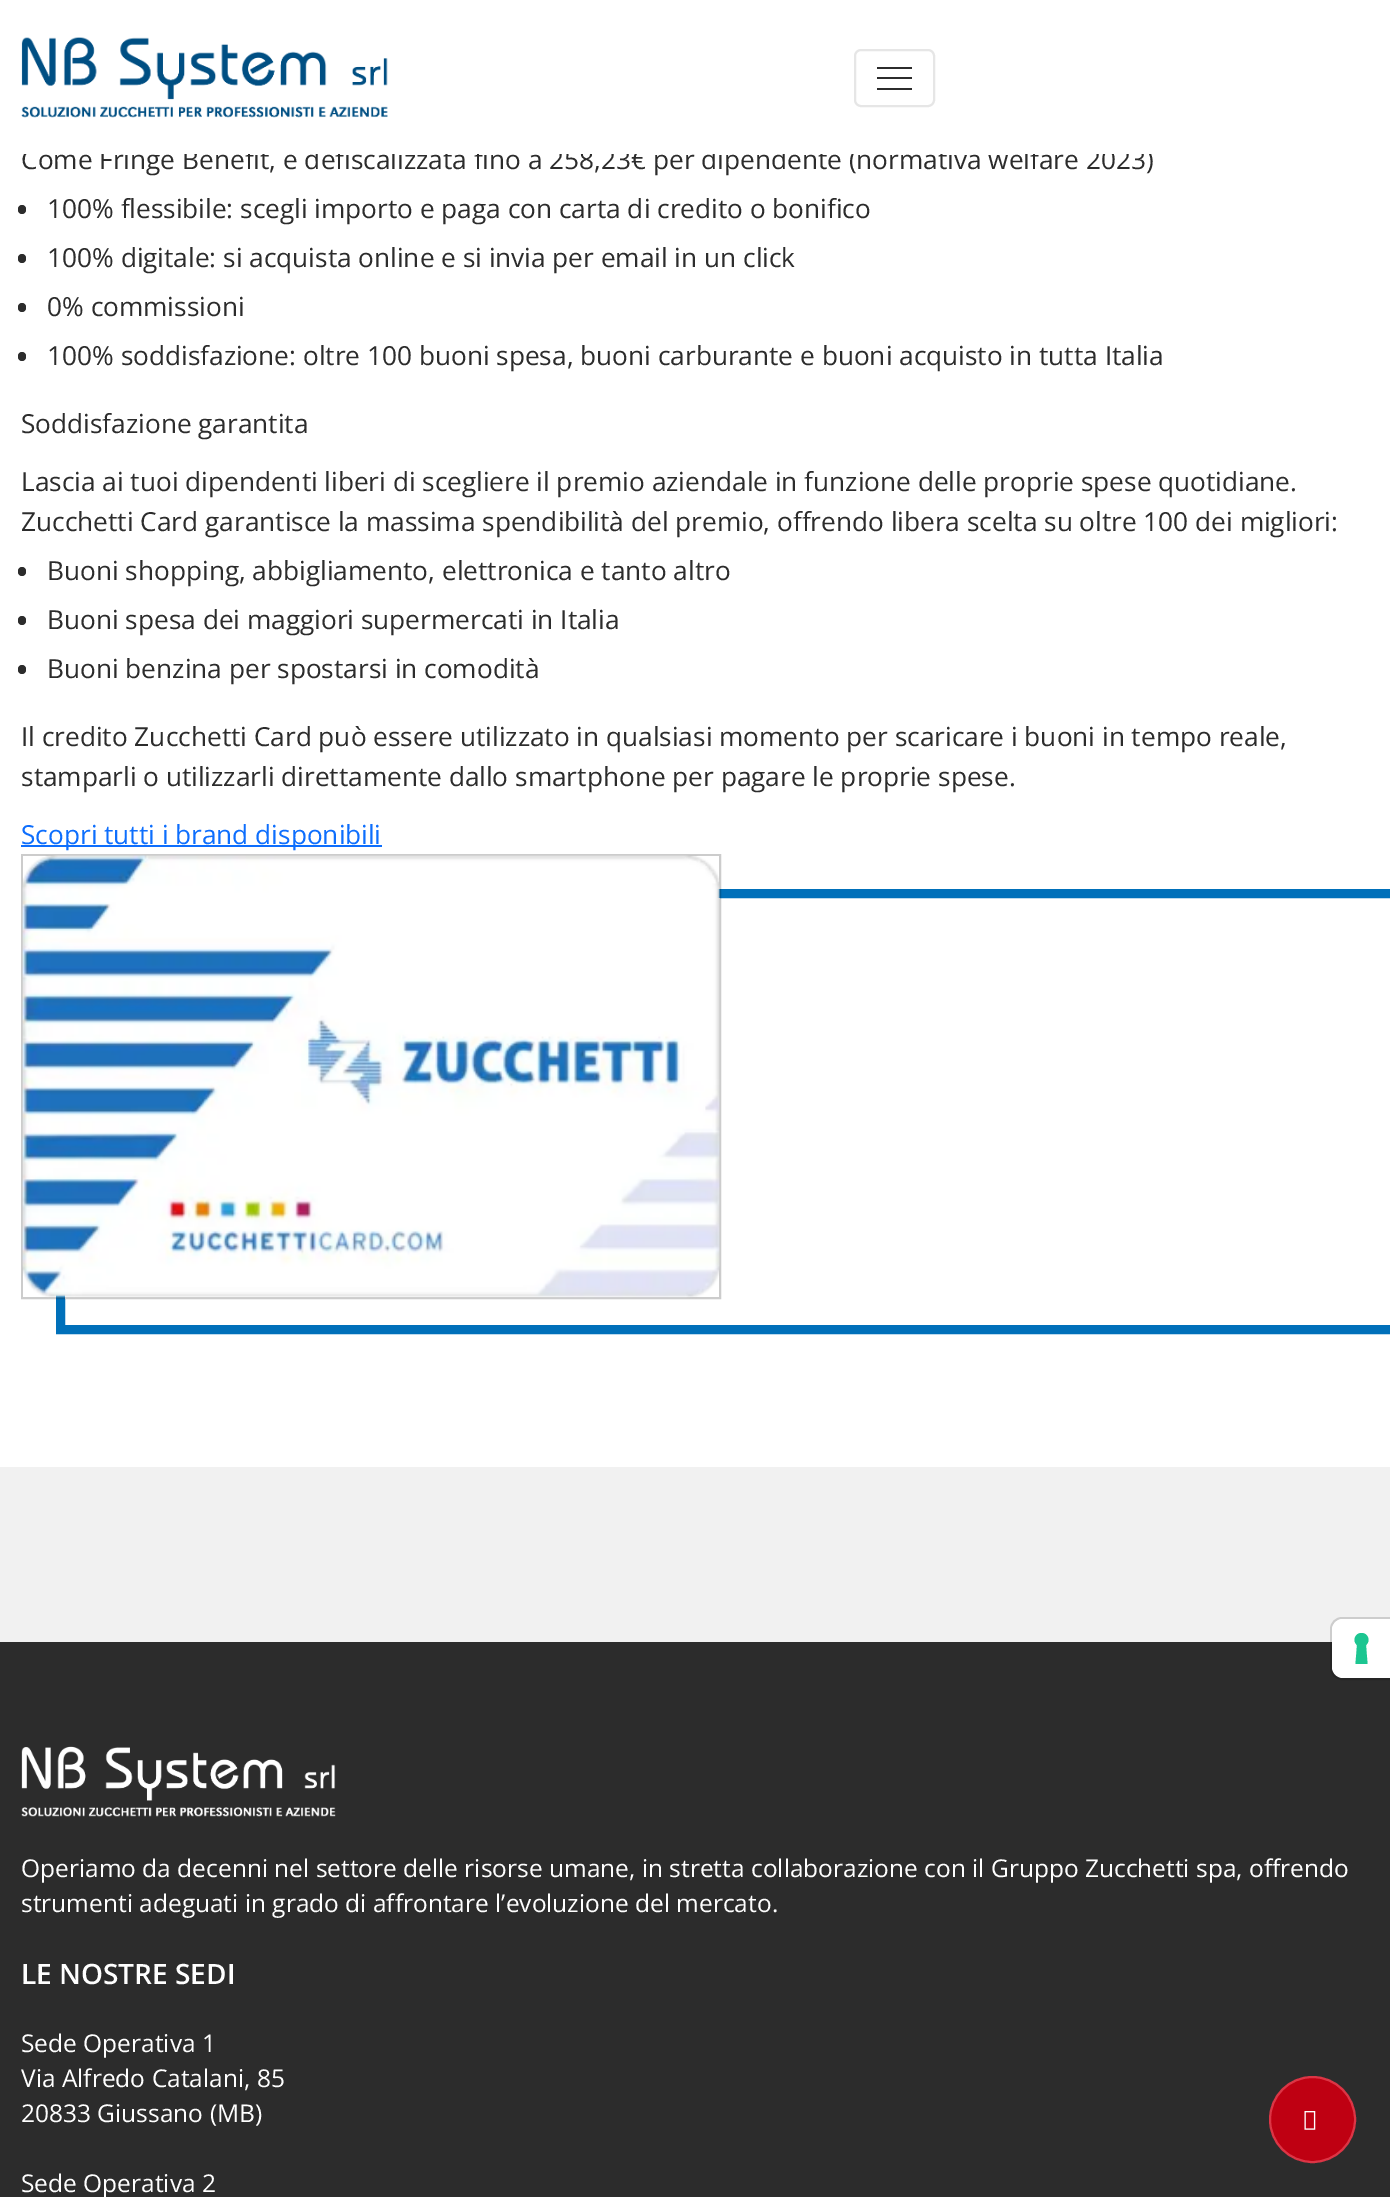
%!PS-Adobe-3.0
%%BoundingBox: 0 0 1390 2197
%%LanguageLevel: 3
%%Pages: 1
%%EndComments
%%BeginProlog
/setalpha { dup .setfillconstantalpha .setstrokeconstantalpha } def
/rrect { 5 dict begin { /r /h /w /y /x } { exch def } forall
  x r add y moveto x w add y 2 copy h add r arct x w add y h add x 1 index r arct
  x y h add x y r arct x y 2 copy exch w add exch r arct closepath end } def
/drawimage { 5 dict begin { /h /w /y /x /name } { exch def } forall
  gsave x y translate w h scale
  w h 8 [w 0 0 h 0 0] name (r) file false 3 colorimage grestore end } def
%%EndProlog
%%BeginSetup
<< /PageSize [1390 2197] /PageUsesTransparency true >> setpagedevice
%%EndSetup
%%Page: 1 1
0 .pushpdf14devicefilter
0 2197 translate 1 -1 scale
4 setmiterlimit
1 setgray
0 0 1390 2197 rectfill
(images/1.raw) 21 37 367 81 drawimage
0.902 setgray
2 setlinewidth
855 50 79 56 6 rrect stroke
0.173 setgray
877 67 35 2 rectfill
877 77 35 2 rectfill
877 88 35 2 rectfill
18 205 8 9 4 rrect fill
18 254 8 9 4 rrect fill
18 303 8 9 4 rrect fill
18 352 8 9 4 rrect fill
18 567 8 9 4 rrect fill
18 616 8 9 4 rrect fill
18 665 8 9 4 rrect fill
0.051 0.431 0.992 setrgbcolor
21 845 361 2 rectfill
0 0.439 0.729 setrgbcolor
9 setlinewidth
60.5 893.5 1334 436 rectstroke
0.2 setalpha
0 setgray
2 setlinewidth
22 855 698 443 rectstroke
1 setalpha
(images/2.raw) 22 855 698 444 drawimage
0.945 setgray
0 1467 1390 175 rectfill
0.173 setgray
0 1642 1390 555 rectfill
0.15 setalpha
0 setgray
newpath 1342 1618 moveto 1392 1618 lineto 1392 1679 lineto 1342 1679 lineto 1336 1679 1331 1674 1331 1668 curveto 1331 1629 lineto 1331 1623 1336 1618 1342 1618 curveto closepath stroke
1 setalpha
1 setgray
newpath 1343 1619 moveto 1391 1619 lineto 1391 1678 lineto 1343 1678 lineto 1337 1678 1332 1673 1332 1667 curveto 1332 1630 lineto 1332 1624 1337 1619 1343 1619 curveto closepath fill
0.11 0.776 0.569 setrgbcolor
newpath 1361.5 1633 moveto 1368 1633 1371 1641 1366 1645 curveto 1367.5 1664 lineto 1355.5 1664 lineto 1357 1645 lineto 1352 1641 1355 1633 1361.5 1633 curveto closepath eofill
(images/3.raw) 21 1746 315 71 drawimage
0.749 0 0.071 setrgbcolor
newpath 1312.5 2119.5 42.5 0 360 arc closepath gsave fill grestore
0.863 0.208 0.271 setrgbcolor
stroke
(images/4.raw) 1304 2111 12 19 drawimage
/OpenSans-Regular [26.25 0 0 -26.25 0 0] selectfont
0.173 setgray
21 169 moveto (Come Fringe Benefit, è defiscalizzata fino a 258,23€ per dipendente \(normativa welfare 2023\)) show
1 setgray
24 148 1127 6 rectfill
0.173 setgray
47 218 moveto (100% flessibile: scegli importo e paga con carta di credito o bonifico) show
47 267 moveto (100% digitale: si acquista online e si invia per email in un click) show
47 316 moveto (0% commissioni) show
47 365 moveto (100% soddisfazione: oltre 100 buoni spesa, buoni carburante e buoni acquisto in tutta Italia) show
21 433 moveto (Soddisfazione garantita) show
21 491 moveto (Lascia ai tuoi dipendenti liberi di scegliere il premio aziendale in funzione delle proprie spese quotidiane.) show
21 531 moveto (Zucchetti Card garantisce la massima spendibilità del premio, offrendo libera scelta su oltre 100 dei migliori:) show
47 580 moveto (Buoni shopping, abbigliamento, elettronica e tanto altro) show
47 629 moveto (Buoni spesa dei maggiori supermercati in Italia) show
47 678 moveto (Buoni benzina per spostarsi in comodità) show
21 746 moveto (Il credito Zucchetti Card può essere utilizzato in qualsiasi momento per scaricare i buoni in tempo reale,) show
21 786 moveto (stamparli o utilizzarli direttamente dallo smartphone per pagare le proprie spese.) show
0.051 0.431 0.992 setrgbcolor
21 844 moveto (Scopri tutti i brand disponibili) show
/OpenSans-Regular [24.5 0 0 -24.5 0 0] selectfont
1 setgray
21 1877 moveto (Operiamo da decenni nel settore delle risorse umane, in stretta collaborazione con il Gruppo Zucchetti spa, offrendo) show
21 1912 moveto (strumenti adeguati in grado di affrontare l’evoluzione del mercato.) show
/OpenSans-SemiBold [28 0 0 -28 0 0] selectfont
21 1984 moveto (LE NOSTRE SEDI) show
/OpenSans-Regular [24.5 0 0 -24.5 0 0] selectfont
21 2052 moveto (Sede Operativa 1) show
21 2087 moveto (Via Alfredo Catalani, 85) show
21 2122 moveto (20833 Giussano \(MB\)) show
21 2192 moveto (Sede Operativa 2) show
.poppdf14devicefilter showpage
%%EOF
